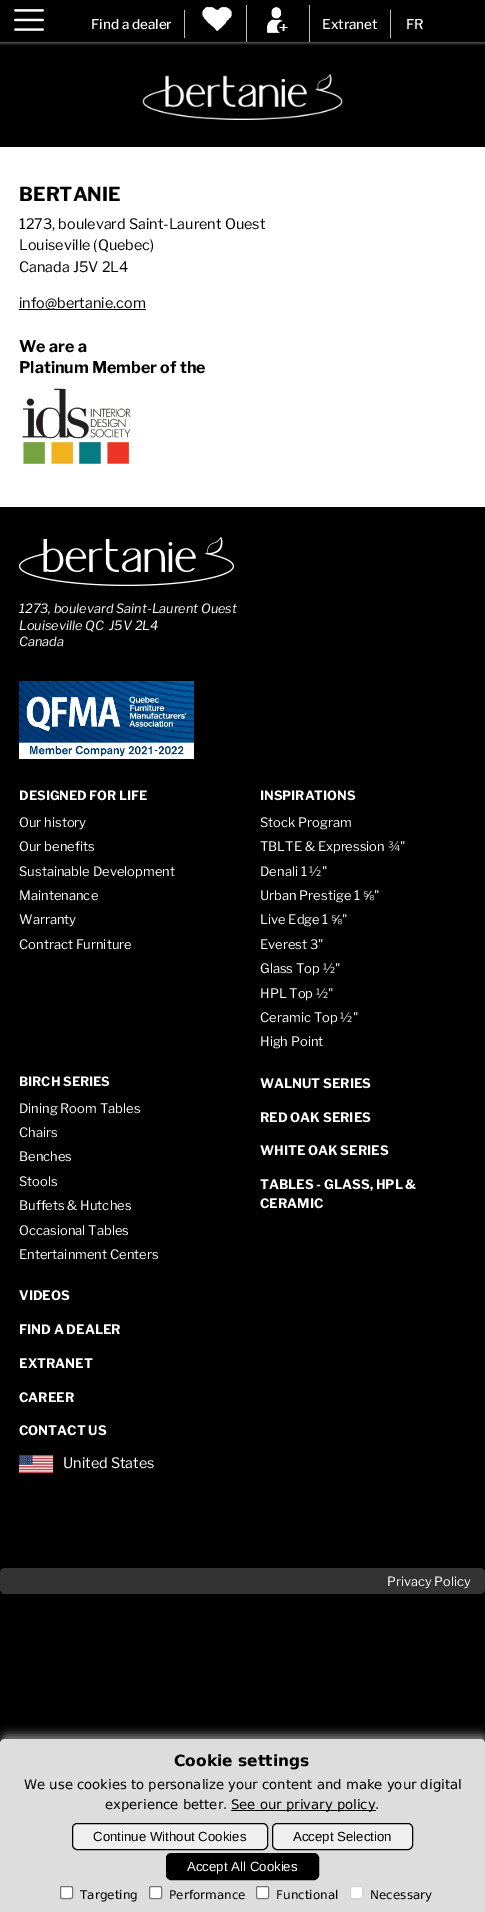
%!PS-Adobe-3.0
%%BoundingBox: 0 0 485 1912
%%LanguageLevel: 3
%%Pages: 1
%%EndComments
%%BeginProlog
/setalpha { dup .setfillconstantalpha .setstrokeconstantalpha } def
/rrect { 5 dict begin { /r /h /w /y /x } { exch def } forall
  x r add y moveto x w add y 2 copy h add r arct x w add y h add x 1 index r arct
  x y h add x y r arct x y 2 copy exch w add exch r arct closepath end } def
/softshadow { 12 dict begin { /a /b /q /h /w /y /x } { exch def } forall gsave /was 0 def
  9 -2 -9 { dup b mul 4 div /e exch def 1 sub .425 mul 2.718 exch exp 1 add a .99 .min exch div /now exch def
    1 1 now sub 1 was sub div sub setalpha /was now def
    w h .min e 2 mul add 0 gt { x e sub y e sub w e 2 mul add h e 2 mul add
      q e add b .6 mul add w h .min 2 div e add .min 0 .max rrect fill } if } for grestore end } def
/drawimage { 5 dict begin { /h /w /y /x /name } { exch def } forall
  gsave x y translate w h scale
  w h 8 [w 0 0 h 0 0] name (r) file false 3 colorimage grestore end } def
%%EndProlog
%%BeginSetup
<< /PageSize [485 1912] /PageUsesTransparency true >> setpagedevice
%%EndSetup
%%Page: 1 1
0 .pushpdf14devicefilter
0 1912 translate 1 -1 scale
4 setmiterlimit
0 setgray
0 0 485 1912 rectfill
gsave
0 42 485 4 rectclip
0.459 setgray
0 1 485 42 0 1.5 1 softshadow
grestore
(images/1.raw) 14 9 30 22 drawimage
0.776 0.745 0.663 setrgbcolor
184 10 1 28 rectfill
246 5 1 37 rectfill
(images/2.raw) 202 7 30 24 drawimage
309 5 1 37 rectfill
(images/3.raw) 267 7 21 26 drawimage
390 10 1 28 rectfill
(images/4.raw) 142 74 201 46 drawimage
1 setgray
0 147 485 360 rectfill
0 setgray
19 309 127 1 rectfill
(images/5.raw) 22 388 109 76 drawimage
(images/6.raw) 19 537 215 49 drawimage
(images/7.raw) 19 681 175 78 drawimage
(images/8.raw) 19 1455 34 18 drawimage
0.2 setgray
0 1568 485 26 5 rrect fill
0.533 setgray
2 1735 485 173 5 5 1 softshadow
0.867 setgray
newpath 5 1739 moveto 480 1739 lineto 483 1739 485 1741 485 1744 curveto 485 1912 lineto 0 1912 lineto 0 1744 lineto 0 1741 2 1739 5 1739 curveto closepath fill
0 setgray
231 1810 145 1 rectfill
0.937 setgray
72.5 1823.5 195 26 4.5 rrect gsave fill grestore
0 setgray
stroke
0.937 setgray
272.5 1823.5 140 26 4.5 rrect gsave fill grestore
0 setgray
stroke
166.5 1853.5 152 26 4.5 rrect gsave fill grestore
stroke
1 setgray
60.5 1886.5 12 12 1.5 rrect gsave fill grestore
0.463 setgray
stroke
1 setgray
149.5 1886.5 12 12 1.5 rrect gsave fill grestore
0.463 setgray
stroke
1 setgray
256.5 1886.5 12 12 1.5 rrect gsave fill grestore
0.463 setgray
stroke
1 setgray
350 1886 13 13 2 rrect fill
0.3 setalpha
0.463 setgray
350.5 1886.5 12 12 1.5 rrect stroke
/LibreFranklin-Medium [13.5 0 0 -13.5 0 0] selectfont
1 setalpha
1 setgray
91 29 moveto (Find a dealer) show
322 29 moveto (Extranet) show
406 29 moveto (FR) show
/LibreFranklin-Bold [19.25 0 0 -19.25 0 0] selectfont
0 setgray
19 201 moveto (BERTANIE) show
/LibreFranklin-Regular [14.4 0 0 -14.4 0 0] selectfont
19 229 moveto (1273, boulevard Saint-Laurent Ouest) show
19 250 moveto (Louiseville \(Quebec\)) show
19 272 moveto (Canada J5V 2L4) show
19 308 moveto (info@bertanie.com) show
/LibreFranklin-Bold [16 0 0 -16 0 0] selectfont
19 352 moveto (We are a) show
19 373 moveto (Platinum Member of the) show
/LibreFranklin-Italic [12.75 0 0 -12.75 0 0] selectfont
1 setgray
19 613 moveto (1273, boulevard Saint-Laurent Ouest) show
19 630 moveto (Louiseville QC  J5V 2L4) show
19 646 moveto (Canada) show
/LibreFranklin-Bold [12.75 0 0 -12.75 0 0] selectfont
19 800 moveto (DESIGNED FOR LIFE) show
/LibreFranklin-Regular [13 0 0 -13 0 0] selectfont
19 827 moveto (Our history) show
19 851 moveto (Our benefits) show
19 876 moveto (Sustainable Development) show
19 900 moveto (Maintenance) show
19 924 moveto (Warranty) show
19 949 moveto (Contract Furniture) show
/LibreFranklin-Bold [12.75 0 0 -12.75 0 0] selectfont
260 800 moveto (INSPIRATIONS) show
/LibreFranklin-Regular [13 0 0 -13 0 0] selectfont
260 827 moveto (Stock Program) show
260 851 moveto (TBLTE & Expression ¾") show
260 876 moveto (Denali 1 ½") show
260 900 moveto (Urban Prestige 1) show
/LiberationSans-Regular [13 0 0 -13 0 0] selectfont
363 900 moveto (⅝) show
/LibreFranklin-Regular [13 0 0 -13 0 0] selectfont
374 900 moveto (") show
260 924 moveto (Live Edge 1) show
/LiberationSans-Regular [13 0 0 -13 0 0] selectfont
331 924 moveto (⅝) show
/LibreFranklin-Regular [13 0 0 -13 0 0] selectfont
342 924 moveto (") show
260 949 moveto (Everest 3") show
260 973 moveto (Glass Top ½") show
260 998 moveto (HPL Top ½") show
260 1022 moveto (Ceramic Top ½") show
260 1046 moveto (High Point) show
/LibreFranklin-Bold [12.75 0 0 -12.75 0 0] selectfont
19 1086 moveto (BIRCH SERIES) show
/LibreFranklin-Regular [13 0 0 -13 0 0] selectfont
19 1113 moveto (Dining Room Tables) show
19 1137 moveto (Chairs) show
19 1161 moveto (Benches) show
19 1186 moveto (Stools) show
19 1210 moveto (Buffets & Hutches) show
19 1235 moveto (Occasional Tables) show
19 1259 moveto (Entertainment Centers) show
/LibreFranklin-Bold [13 0 0 -13 0 0] selectfont
260 1088 moveto (WALNUT SERIES) show
260 1122 moveto (RED OAK SERIES) show
260 1155 moveto (WHITE OAK SERIES) show
260 1189 moveto (TABLES - GLASS, HPL &) show
260 1208 moveto (CERAMIC) show
19 1300 moveto (VIDEOS) show
19 1334 moveto (FIND A DEALER) show
19 1368 moveto (EXTRANET) show
19 1402 moveto (CAREER) show
19 1435 moveto (CONTACT US) show
/LibreFranklin-Regular [14.4 0 0 -14.4 0 0] selectfont
63 1468 moveto (United States) show
/LibreFranklin-Regular [12.75 0 0 -12.75 0 0] selectfont
387 1586 moveto (Privacy Policy) show
/DejaVuSans-Bold [15.5 0 0 -15.5 0 0] selectfont
0 setgray
174 1766 moveto (Cookie settings) show
/DejaVuSans-Regular [13.2 0 0 -13.2 0 0] selectfont
24 1789 moveto (We use cookies to personalize your content and make your digital) show
105 1809 moveto (experience better.) show
231 1809 moveto (See our privary policy.) show
/LiberationSans-Regular [13.25 0 0 -13.25 0 0] selectfont
93 1841 moveto (Continue Without Cookies) show
293 1841 moveto (Accept Selection) show
1 setgray
187 1871 moveto (Accept All Cookies) show
/DejaVuSans-Regular [12 0 0 -12 0 0] selectfont
0 setgray
80 1899 moveto (Targeting) show
169 1899 moveto (Performance) show
276 1899 moveto (Functional) show
370 1899 moveto (Necessary) show
.poppdf14devicefilter showpage
%%EOF
